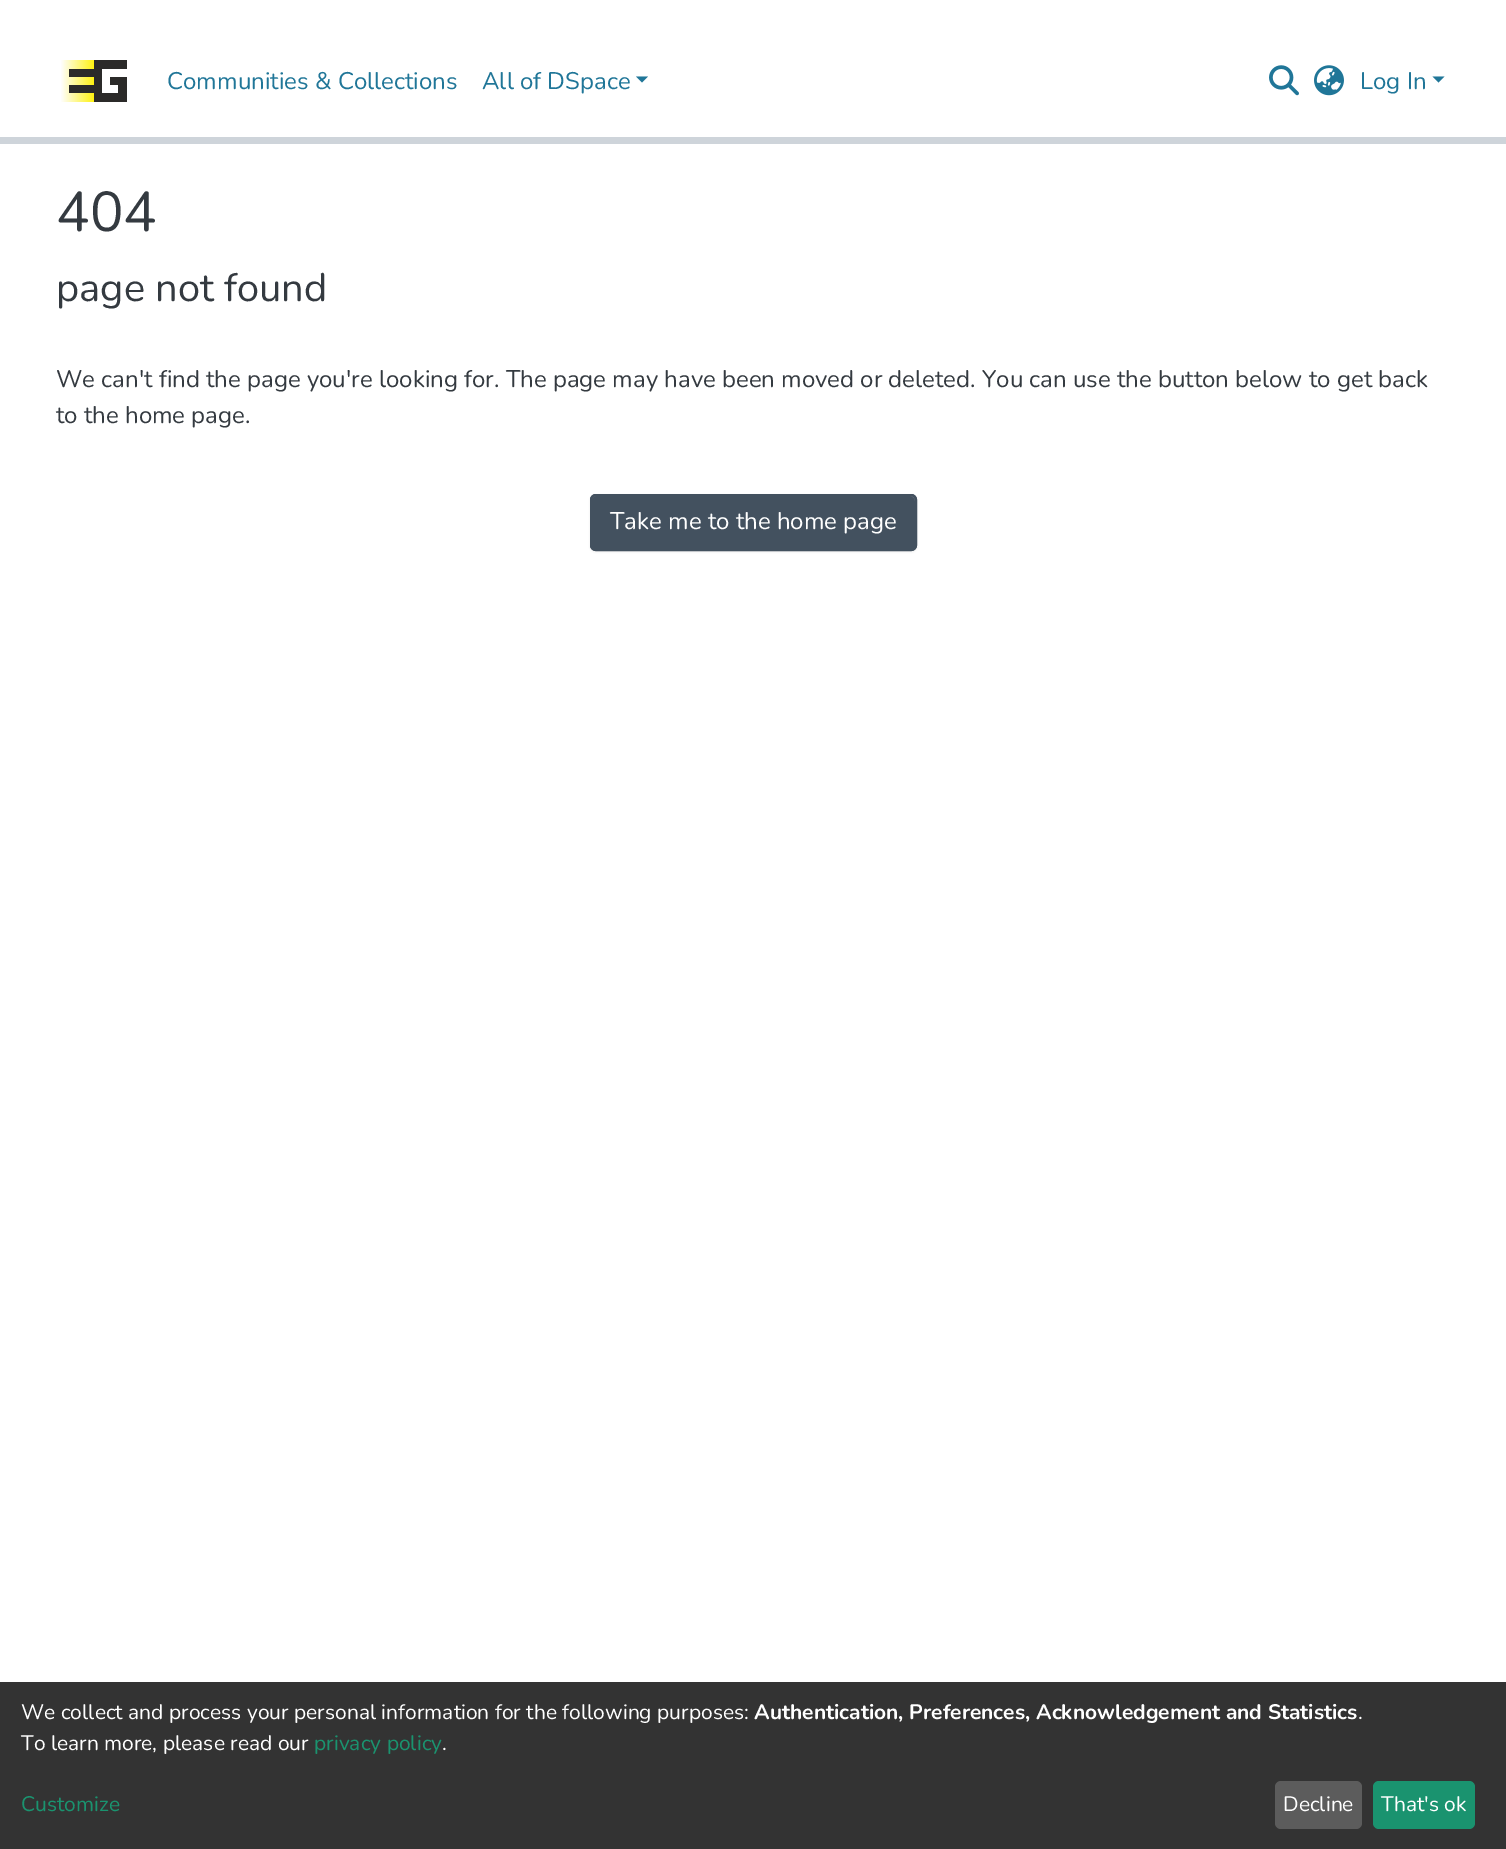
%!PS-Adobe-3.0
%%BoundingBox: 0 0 1506 1849
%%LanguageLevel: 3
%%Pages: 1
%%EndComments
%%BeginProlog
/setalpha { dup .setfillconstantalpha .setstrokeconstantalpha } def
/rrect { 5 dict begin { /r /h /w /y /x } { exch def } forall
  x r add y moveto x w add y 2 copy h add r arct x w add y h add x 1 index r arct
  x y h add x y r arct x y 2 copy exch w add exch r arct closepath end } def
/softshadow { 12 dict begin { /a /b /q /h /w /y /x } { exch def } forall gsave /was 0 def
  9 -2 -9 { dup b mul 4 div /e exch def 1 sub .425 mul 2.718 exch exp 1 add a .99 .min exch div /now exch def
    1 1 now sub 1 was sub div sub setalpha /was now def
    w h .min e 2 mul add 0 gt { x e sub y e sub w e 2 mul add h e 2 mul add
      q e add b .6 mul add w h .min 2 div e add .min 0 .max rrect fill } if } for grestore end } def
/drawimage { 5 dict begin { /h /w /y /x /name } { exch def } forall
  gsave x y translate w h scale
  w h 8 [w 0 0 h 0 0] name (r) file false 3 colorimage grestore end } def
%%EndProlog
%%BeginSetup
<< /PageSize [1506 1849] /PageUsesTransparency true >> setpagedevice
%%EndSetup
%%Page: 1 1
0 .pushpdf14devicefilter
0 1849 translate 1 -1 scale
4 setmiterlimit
1 setgray
0 0 1506 1849 rectfill
0.808 0.831 0.855 setrgbcolor
0 137 1506 7 rectfill
gsave newpath 61 60 moveto 94 60 lineto 94 102 lineto 61 102 lineto closepath clip newpath
<< /ShadingType 2 /ColorSpace /DeviceRGB /Coords [61 81 94 81] /Extend [true true] /Function << /FunctionType 2 /Domain [0 1] /C0 [0.996 0.996 0.996] /C1 [1 0.949 0.071] /N 1 >> >> shfill grestore
0.169 0.165 0.161 setrgbcolor
newpath 102 69 moveto 127 69 lineto 127 60 lineto 94 60 lineto 94 69 lineto 69 69 lineto 69 77 lineto 94 77 lineto 94 85 lineto 69 85 lineto 69 93 lineto 94 93 lineto 94 102 lineto 127 102 lineto 127 77 lineto 110 77 lineto 110 85 lineto 118 85 lineto 118 93 lineto 102 93 lineto closepath fill
0.125 0.463 0.596 setrgbcolor
newpath 636 76.5 moveto 648 76.5 lineto 642 82.5 lineto closepath fill
(images/1.raw) 1269 65 30 31 drawimage
(images/2.raw) 1314 65 30 31 drawimage
newpath 1432.5 76.5 moveto 1444.5 76.5 lineto 1438.5 82.5 lineto closepath fill
0 setgray
590 495 327 57 6 1 0.07 softshadow
0.263 0.318 0.373 setrgbcolor
590 494 327 57 6 rrect fill
0.373 0.42 0.467 setrgbcolor
newpath 596 496 moveto 910 496 lineto 913 496 915 499 915 501 curveto 915 498 913 495 910 495 curveto 596 495 lineto 593 495 591 498 591 501 curveto 591 499 593 496 596 496 curveto closepath fill
0.263 0.318 0.373 setrgbcolor
2 setlinewidth
591 495 325 55 5 rrect stroke
0.2 setgray
0 1682 1506 167 rectfill
0.361 setgray
1275 1781 87 48 6 rrect fill
0.102 0.576 0.435 setrgbcolor
1373 1781 102 48 6 rrect fill
/Nunito-Regular [24 0 0 -24 0 0] selectfont
0.125 0.463 0.596 setrgbcolor
167 89 moveto (Communities & Collections) show
482 89 moveto (All of DSpace) show
1360 89 moveto (Log In) show
/Nunito-Regular [56 0 0 -56 0 0] selectfont
0.204 0.227 0.251 setrgbcolor
56 231 moveto (404) show
/Nunito-Regular [39.75 0 0 -39.75 0 0] selectfont
56 301 moveto (page not found) show
/Nunito-Regular [24 0 0 -24 0 0] selectfont
56 387 moveto (We can't find the page you're looking for. The page may have been moved or deleted. You can use the button below to get back) show
56 423 moveto (to the home page.) show
1 setgray
610 529 moveto (Take me to the home page) show
/Nunito-Regular [21 0 0 -21 0 0] selectfont
21 1719 moveto (We collect and process your personal information for the following purposes:) show
/Nunito-Bold [21 0 0 -21 0 0] selectfont
754 1719 moveto (Authentication, Preferences, Acknowledgement and Statistics) show
/Nunito-Regular [21 0 0 -21 0 0] selectfont
1358 1719 moveto (.) show
21 1750 moveto (To learn more, please read our) show
0.102 0.576 0.435 setrgbcolor
314 1750 moveto (privacy policy) show
1 setgray
442 1750 moveto (.) show
0.102 0.576 0.435 setrgbcolor
21 1811 moveto (Customize) show
1 setgray
1283 1811 moveto (Decline) show
1381 1811 moveto (That's ok) show
.poppdf14devicefilter showpage
%%EOF
